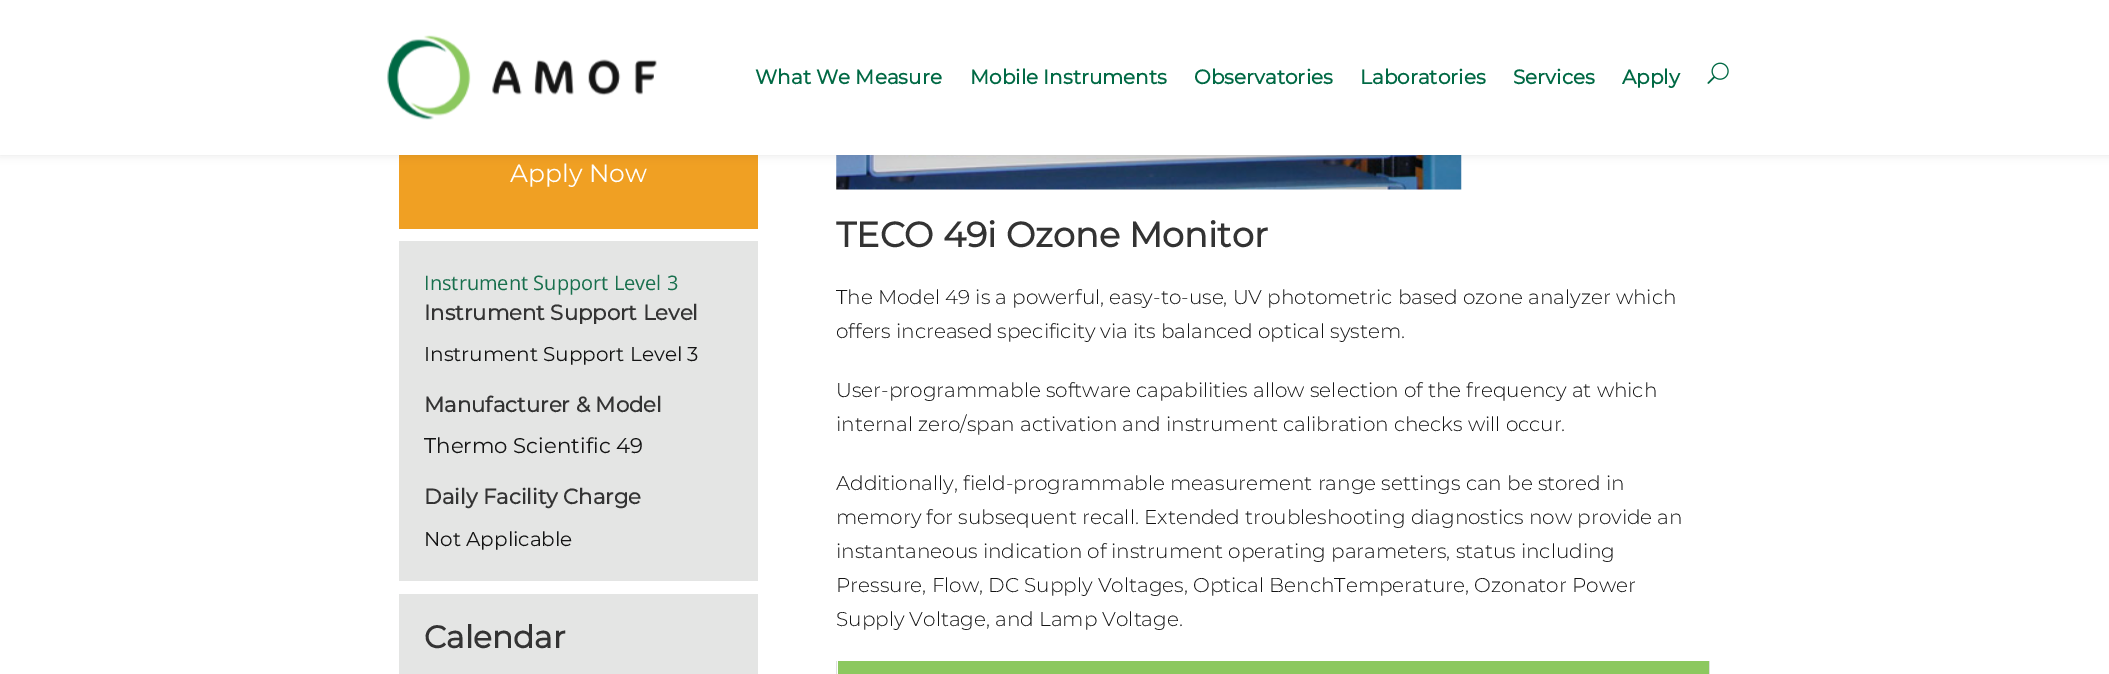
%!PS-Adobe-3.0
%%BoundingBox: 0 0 2109 674
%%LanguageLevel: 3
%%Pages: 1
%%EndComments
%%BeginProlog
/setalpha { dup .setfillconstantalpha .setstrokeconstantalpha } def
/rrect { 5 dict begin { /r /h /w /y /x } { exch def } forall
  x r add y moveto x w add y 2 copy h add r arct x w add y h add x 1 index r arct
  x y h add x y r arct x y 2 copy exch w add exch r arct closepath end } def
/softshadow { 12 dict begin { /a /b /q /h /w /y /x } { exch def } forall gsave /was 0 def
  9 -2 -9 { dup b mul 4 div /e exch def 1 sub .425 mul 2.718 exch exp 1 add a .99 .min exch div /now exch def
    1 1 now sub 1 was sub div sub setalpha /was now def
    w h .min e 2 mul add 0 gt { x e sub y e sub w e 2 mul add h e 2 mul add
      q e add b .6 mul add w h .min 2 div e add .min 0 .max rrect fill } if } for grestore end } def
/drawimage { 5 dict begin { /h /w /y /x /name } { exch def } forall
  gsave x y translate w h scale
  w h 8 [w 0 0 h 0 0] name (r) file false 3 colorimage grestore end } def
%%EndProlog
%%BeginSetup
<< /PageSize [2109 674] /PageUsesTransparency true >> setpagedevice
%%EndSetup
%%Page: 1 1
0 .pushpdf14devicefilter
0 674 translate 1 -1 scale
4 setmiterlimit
1 setgray
0 0 2109 674 rectfill
0.941 0.627 0.137 setrgbcolor
399 155 359 74 rectfill
(images/3.raw) 836 155 626 35 drawimage
0 setgray
0 0 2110 155 0 4.5 0.1 softshadow
1 setgray
0 0 2109 155 rectfill
(images/1.raw) 387 35 270 85 drawimage
(images/2.raw) 1707 62 22 22 drawimage
0.894 0.898 0.894 setrgbcolor
399 241 359 340 rectfill
399 594 359 80 rectfill
0.875 setgray
1709 661 1 13 rectfill
836 661 1 13 rectfill
0.549 0.784 0.373 setrgbcolor
838 661 871 13 rectfill
/Montserrat-Bold [20 0 0 -20 0 0] selectfont
0 0.412 0.267 setrgbcolor
755 84 moveto (What We Measure) show
970 84 moveto (Mobile Instruments) show
1194 84 moveto (Observatories) show
1360 84 moveto (Laboratories) show
1513 84 moveto (Services) show
1622 84 moveto (Apply) show
/Montserrat-Thin [25 0 0 -25 0 0] selectfont
1 setgray
510 182 moveto (Apply Now) show
/OpenSans-Regular [20 0 0 -20 0 0] selectfont
0.094 0.435 0.302 setrgbcolor
424 290 moveto (Instrument Support Level 3) show
/Montserrat-Bold [21.25 0 0 -21.25 0 0] selectfont
0.2 setgray
424 320 moveto (Instrument Support Level) show
/Montserrat-Thin [20 0 0 -20 0 0] selectfont
0.078 setgray
424 361 moveto (Instrument Support Level 3) show
/Montserrat-Bold [21.25 0 0 -21.25 0 0] selectfont
0.2 setgray
424 412 moveto (Manufacturer & Model) show
/Montserrat-Thin [21.25 0 0 -21.25 0 0] selectfont
0.078 setgray
424 453 moveto (Thermo Scientific 49) show
/Montserrat-Bold [21.25 0 0 -21.25 0 0] selectfont
0.2 setgray
424 504 moveto (Daily Facility Charge) show
/Montserrat-Thin [20 0 0 -20 0 0] selectfont
0.078 setgray
424 546 moveto (Not Applicable) show
/Montserrat-Bold [31.25 0 0 -31.25 0 0] selectfont
0.2 setgray
424 648 moveto (Calendar) show
/Montserrat-Bold [35 0 0 -35 0 0] selectfont
836 247 moveto (TECO 49i Ozone Monitor) show
/Montserrat-Light [20 0 0 -20 0 0] selectfont
0.078 setgray
836 304 moveto (The Model 49 is a powerful, easy-to-use, UV photometric based ozone analyzer which) show
836 338 moveto (offers increased specificity via its balanced optical system.) show
836 397 moveto (User-programmable software capabilities allow selection of the frequency at which) show
836 431 moveto (internal zero/span activation and instrument calibration checks will occur.) show
836 490 moveto (Additionally, field-programmable measurement range settings can be stored in) show
836 524 moveto (memory for subsequent recall. Extended troubleshooting diagnostics now provide an) show
836 558 moveto (instantaneous indication of instrument operating parameters, status including) show
836 592 moveto (Pressure, Flow, DC Supply Voltages, Optical BenchTemperature, Ozonator Power) show
836 626 moveto (Supply Voltage, and Lamp Voltage.) show
.poppdf14devicefilter showpage
%%EOF
